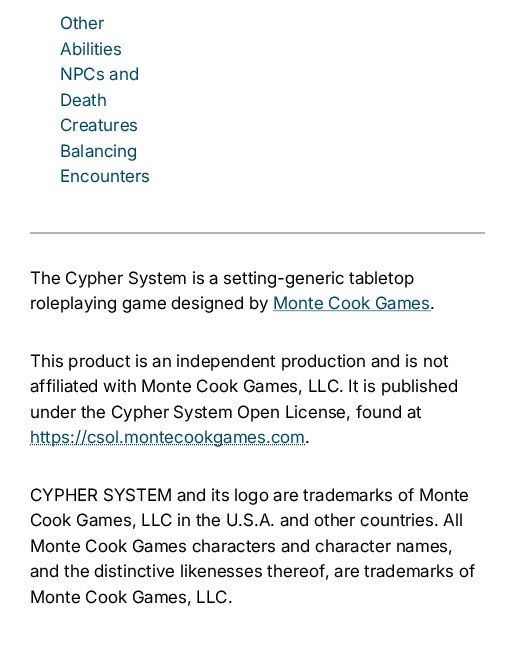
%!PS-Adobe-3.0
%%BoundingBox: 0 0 515 646
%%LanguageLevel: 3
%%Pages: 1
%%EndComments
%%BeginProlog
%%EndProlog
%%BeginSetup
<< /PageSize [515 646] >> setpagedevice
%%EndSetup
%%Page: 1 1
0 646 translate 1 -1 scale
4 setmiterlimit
1 setgray
0 0 515 646 rectfill
0.694 0.706 0.714 setrgbcolor
30 232 455 2 rectfill
0 0.294 0.42 setrgbcolor
[1 1] 0 setdash
newpath 273.5 310.5 moveto 430.5 310.5 lineto stroke
newpath 30 444.5 moveto 305 444.5 lineto stroke
/Inter-Regular [17 0 0 -17 0 0] selectfont
60 29 moveto (Other) show
60 55 moveto (Abilities) show
60 80 moveto (NPCs and) show
60 106 moveto (Death) show
60 131 moveto (Creatures) show
60 157 moveto (Balancing) show
60 182 moveto (Encounters) show
0 setgray
30 284 moveto (The Cypher System is a setting-generic tabletop) show
30 309 moveto (roleplaying game designed by) show
0 0.294 0.42 setrgbcolor
273 309 moveto (Monte Cook Games) show
0 setgray
430 309 moveto (.) show
30 367 moveto (This product is an independent production and is not) show
30 392 moveto (affiliated with Monte Cook Games, LLC. It is published) show
30 418 moveto (under the Cypher System Open License, found at) show
0 0.294 0.42 setrgbcolor
30 443 moveto (https://csol.montecookgames.com) show
0 setgray
305 443 moveto (.) show
30 501 moveto (CYPHER SYSTEM and its logo are trademarks of Monte) show
30 526 moveto (Cook Games, LLC in the U.S.A. and other countries. All) show
30 552 moveto (Monte Cook Games characters and character names,) show
30 577 moveto (and the distinctive likenesses thereof, are trademarks of) show
30 603 moveto (Monte Cook Games, LLC.) show
showpage
%%EOF
